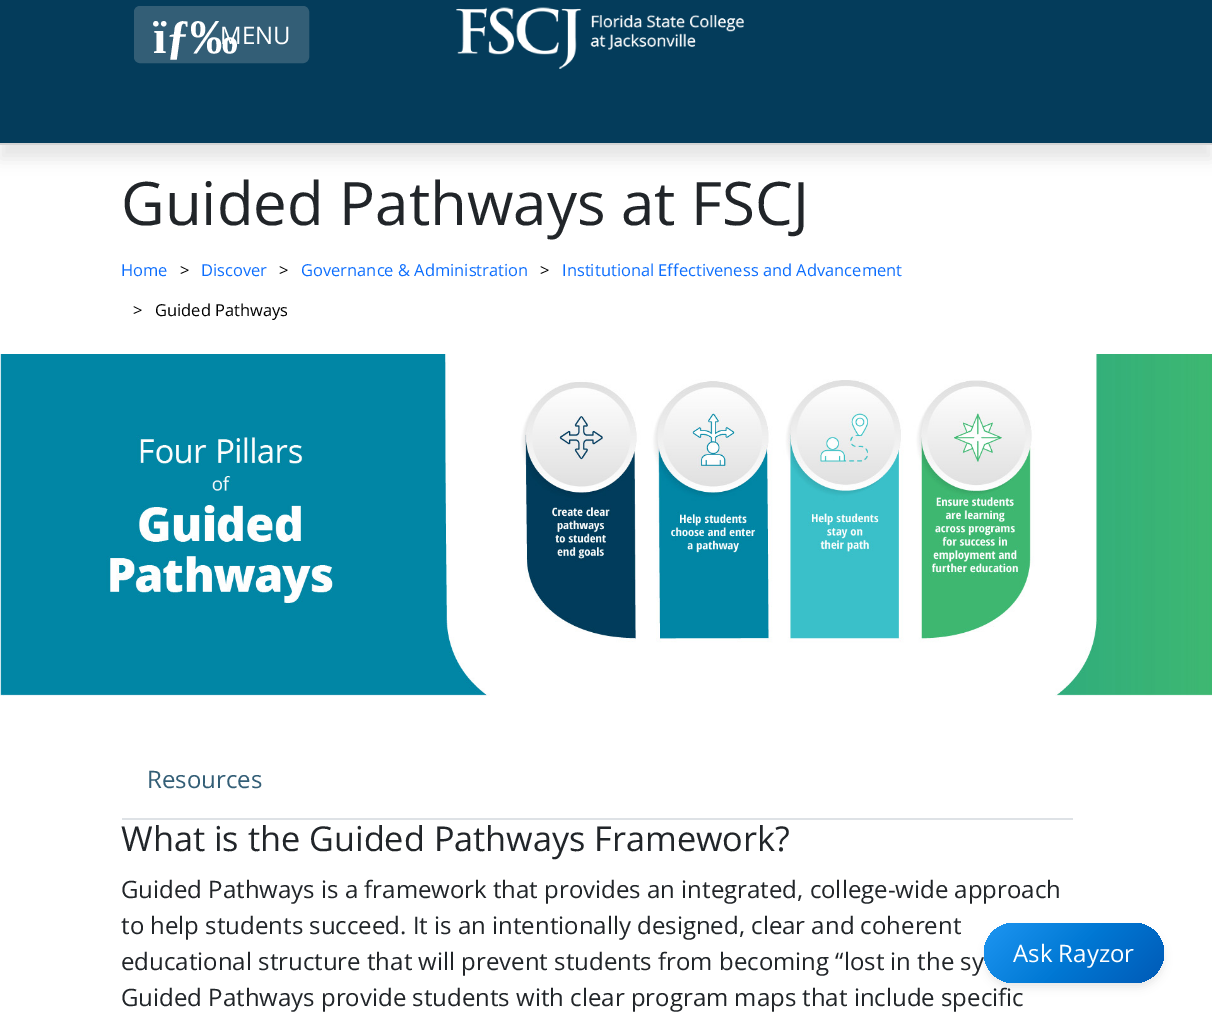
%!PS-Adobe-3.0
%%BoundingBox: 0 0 1212 1030
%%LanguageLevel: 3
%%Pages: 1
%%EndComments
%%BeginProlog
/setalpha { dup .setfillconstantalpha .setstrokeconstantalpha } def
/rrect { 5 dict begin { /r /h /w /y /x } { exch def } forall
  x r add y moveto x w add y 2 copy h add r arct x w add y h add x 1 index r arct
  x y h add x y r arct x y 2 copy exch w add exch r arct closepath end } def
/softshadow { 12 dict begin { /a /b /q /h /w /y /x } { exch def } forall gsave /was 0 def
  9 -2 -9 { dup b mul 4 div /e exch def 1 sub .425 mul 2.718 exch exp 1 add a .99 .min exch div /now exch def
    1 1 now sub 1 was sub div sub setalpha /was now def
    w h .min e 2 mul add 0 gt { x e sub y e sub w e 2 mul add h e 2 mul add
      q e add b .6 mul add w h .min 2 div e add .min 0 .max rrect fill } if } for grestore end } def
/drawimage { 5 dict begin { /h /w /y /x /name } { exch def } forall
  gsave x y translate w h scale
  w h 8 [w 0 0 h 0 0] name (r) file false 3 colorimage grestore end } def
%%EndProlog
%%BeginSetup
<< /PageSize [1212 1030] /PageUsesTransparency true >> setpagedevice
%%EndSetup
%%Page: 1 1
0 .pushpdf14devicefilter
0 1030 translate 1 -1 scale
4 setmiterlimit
1 setgray
0 0 1212 1030 rectfill
0 setgray
0 -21 1212 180 0 7.5 0.1 softshadow
0.016 0.235 0.357 setrgbcolor
0 0 1212 143 rectfill
0.827 setgray
0 143 1212 2 rectfill
0.2 0.369 0.463 setrgbcolor
135 7 173 55 5 rrect gsave fill grestore
2 setlinewidth
stroke
(images/1.raw) 456 7 288 62 drawimage
(images/2.raw) 0 354 1212 342 drawimage
0.871 0.886 0.902 setrgbcolor
122 818 951 2 rectfill
0 setgray
986 930 177 57 28.5 4.5 0.1 softshadow
gsave 984 923 180 60 30 rrect clip newpath
<< /ShadingType 2 /ColorSpace /DeviceRGB /Coords [1014 893 1134 1013] /Extend [true true] /Function << /FunctionType 3 /Domain [0 1] /Functions [<< /FunctionType 2 /Domain [0 1] /C0 [0.118 0.588 0.949] /C1 [0 0.471 0.831] /N 1 >> << /FunctionType 2 /Domain [0 1] /C0 [0 0.471 0.831] /C1 [0 0.353 0.714] /N 1 >>] /Bounds [0.5] /Encode [0 1 0 1] >> >> shfill grestore
/LiberationSerif-Bold [48 0 0 -48 0 0] selectfont
1 setgray
153 53 moveto (ïƒ‰) show
/OpenSans-Regular [24 0 0 -24 0 0] selectfont
220 44 moveto (MENU) show
/OpenSans-Regular [60 0 0 -60 0 0] selectfont
0.129 0.145 0.161 setrgbcolor
121 225 moveto (Guided Pathways at FSCJ) show
/OpenSans-Regular [16.5 0 0 -16.5 0 0] selectfont
0.051 0.431 0.992 setrgbcolor
121 276 moveto (Home) show
0 setgray
180 276 moveto (>) show
0.051 0.431 0.992 setrgbcolor
201 276 moveto (Discover) show
0 setgray
279 276 moveto (>) show
0.051 0.431 0.992 setrgbcolor
301 276 moveto (Governance & Administration) show
0 setgray
540 276 moveto (>) show
0.051 0.431 0.992 setrgbcolor
562 276 moveto (Institutional Effectiveness and Advancement) show
0 setgray
133 316 moveto (>) show
155 316 moveto (Guided Pathways) show
/OpenSans-Regular [24 0 0 -24 0 0] selectfont
0.2 0.369 0.463 setrgbcolor
147 788 moveto (Resources) show
/OpenSans-Regular [34.25 0 0 -34.25 0 0] selectfont
0.129 0.145 0.161 setrgbcolor
121 851 moveto (What is the Guided Pathways Framework?) show
/OpenSans-Regular [24 0 0 -24 0 0] selectfont
121 898 moveto (Guided Pathways is a framework that provides an integrated, college-wide approach) show
121 934 moveto (to help students succeed. It is an intentionally designed, clear and coherent) show
121 970 moveto (educational structure that will prevent students from becoming “lost in the sy) show
121 1006 moveto (Guided Pathways provide students with clear program maps that include specific) show
1 setgray
1013 962 moveto (Ask Rayzor) show
.poppdf14devicefilter showpage
%%EOF
